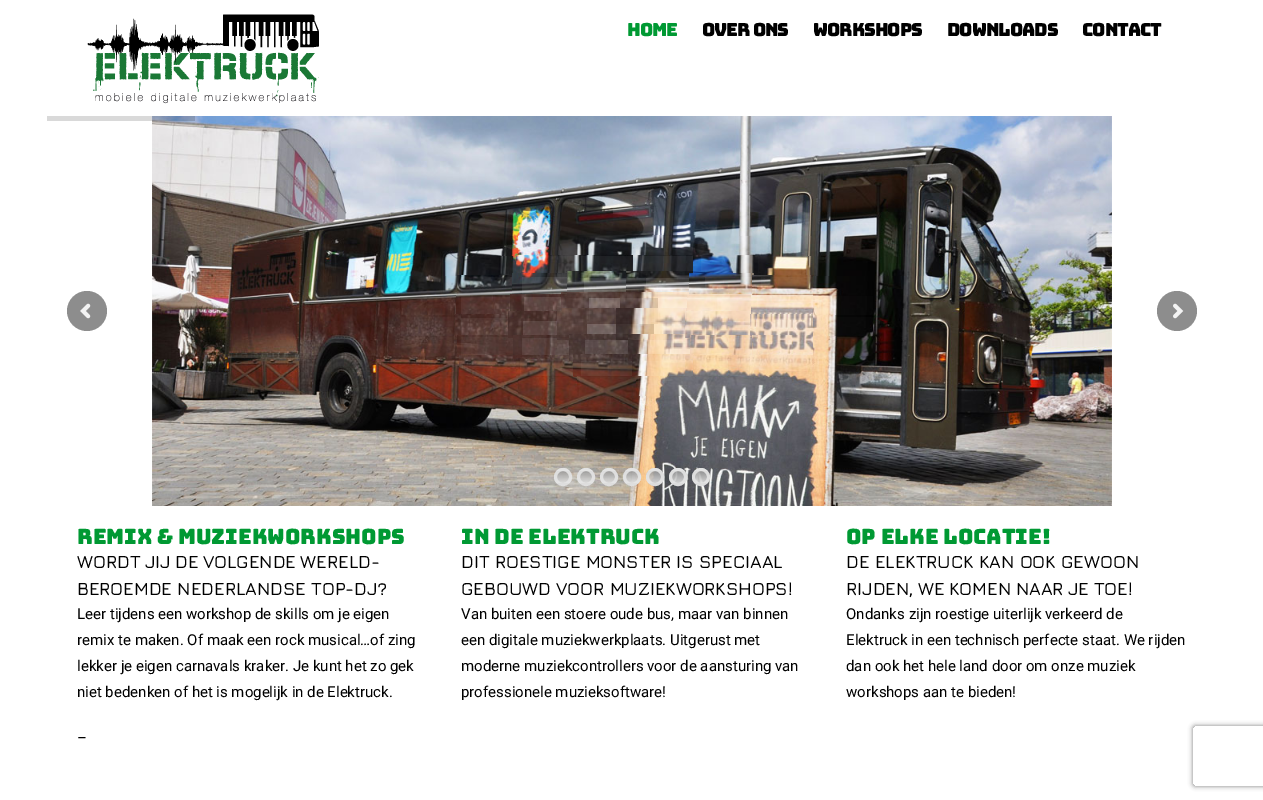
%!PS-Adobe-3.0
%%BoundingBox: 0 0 1263 800
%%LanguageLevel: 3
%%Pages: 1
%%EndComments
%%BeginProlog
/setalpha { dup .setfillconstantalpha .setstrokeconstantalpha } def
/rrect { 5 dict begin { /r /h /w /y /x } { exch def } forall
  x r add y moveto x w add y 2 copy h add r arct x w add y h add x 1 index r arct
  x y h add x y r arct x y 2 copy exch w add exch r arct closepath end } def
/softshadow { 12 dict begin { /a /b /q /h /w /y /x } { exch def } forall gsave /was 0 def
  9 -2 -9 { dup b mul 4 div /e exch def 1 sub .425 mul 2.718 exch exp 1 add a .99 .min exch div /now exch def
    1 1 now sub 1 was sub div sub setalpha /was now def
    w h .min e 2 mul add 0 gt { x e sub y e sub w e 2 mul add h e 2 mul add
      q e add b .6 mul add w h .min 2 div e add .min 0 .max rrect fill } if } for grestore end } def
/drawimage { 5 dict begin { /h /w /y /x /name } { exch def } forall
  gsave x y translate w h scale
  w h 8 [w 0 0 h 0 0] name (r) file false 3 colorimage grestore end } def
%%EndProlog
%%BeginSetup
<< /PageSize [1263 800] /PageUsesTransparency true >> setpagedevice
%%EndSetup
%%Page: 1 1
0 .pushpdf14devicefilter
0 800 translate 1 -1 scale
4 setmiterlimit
1 setgray
0 0 1263 800 rectfill
(images/1.raw) 87 14 232 90 drawimage
(images/2.raw) 152 116 960 390 drawimage
0.15 setalpha
0 setgray
47 116 148 5 rectfill
1 setalpha
0.553 setgray
newpath 87 311 20 0 360 arc closepath fill
(images/3.raw) 80 303 11 16 drawimage
newpath 1177 311 20 0 360 arc closepath fill
(images/4.raw) 1173 303 11 16 drawimage
0.89 setalpha
0.898 setgray
3 setlinewidth
newpath 563 477 7.5 0 360 arc closepath stroke
newpath 586 477 7.5 0 360 arc closepath stroke
newpath 609 477 7.5 0 360 arc closepath stroke
newpath 632 477 7.5 0 360 arc closepath stroke
newpath 655 477 7.5 0 360 arc closepath stroke
newpath 678 477 7.5 0 360 arc closepath stroke
newpath 701 477 7.5 0 360 arc closepath stroke
gsave
newpath 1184 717 moveto 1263 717 lineto 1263 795 lineto 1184 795 lineto closepath 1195 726 moveto 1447 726 lineto 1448 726 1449 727 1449 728 curveto 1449 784 lineto 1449 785 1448 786 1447 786 curveto 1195 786 lineto 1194 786 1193 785 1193 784 curveto 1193 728 lineto 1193 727 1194 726 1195 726 curveto closepath eoclip newpath
1 setalpha
0.502 setgray
1193 726 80 60 2 2.5 1 softshadow
grestore
/Bungee-Regular [18 0 0 -18 0 0] selectfont
1 setalpha
0 0.6 0.2 setrgbcolor
627 36 moveto -1 0 (Home) ashow
0 setgray
702 36 moveto -1 0 (Over ons) ashow
813 36 moveto -1 0 (Workshops) ashow
947 36 moveto -1 0 (Downloads) ashow
1082 36 moveto -1 0 (Contact) ashow
/Bungee-Regular [21 0 0 -21 0 0] selectfont
0 0.6 0.2 setrgbcolor
77 544 moveto (REMIX & MUZIEKWORKSHOPS) show
/Jura-SemiBold [18 0 0 -18 0 0] selectfont
0 setgray
77 568 moveto -1 0 32 (WORDT JIJ DE VOLGENDE WERELD-) widthshow
77 595 moveto (BEROEMDE NEDERLANDSE TOP-DJ?) show
/Roboto-Regular [15 0 0 -15 0 0] selectfont
77 619 moveto (Leer tijdens een workshop de skills om je eigen) show
77 645 moveto (remix te maken. Of maak een rock musical…of zing) show
77 671 moveto (lekker je eigen carnavals kraker. Je kunt het zo gek) show
77 697 moveto (niet bedenken of het is mogelijk in de Elektruck.) show
77 743 moveto (–) show
/Bungee-Regular [21 0 0 -21 0 0] selectfont
0 0.6 0.2 setrgbcolor
461 544 moveto (IN DE ELEKTRUCK) show
/Jura-SemiBold [18 0 0 -18 0 0] selectfont
0 setgray
461 568 moveto (DIT ROESTIGE MONSTER IS SPECIAAL) show
461 595 moveto (GEBOUWD VOOR MUZIEKWORKSHOPS!) show
/Roboto-Regular [15 0 0 -15 0 0] selectfont
461 619 moveto (Van buiten een stoere oude bus, maar van binnen) show
461 645 moveto (een digitale muziekwerkplaats. Uitgerust met) show
461 671 moveto (moderne muziekcontrollers voor de aansturing van) show
461 697 moveto (professionele muzieksoftware!) show
/Bungee-Regular [21 0 0 -21 0 0] selectfont
0 0.6 0.2 setrgbcolor
846 544 moveto (OP ELKE LOCATIE!) show
/Jura-SemiBold [18 0 0 -18 0 0] selectfont
0 setgray
846 568 moveto (DE ELEKTRUCK KAN OOK GEWOON) show
846 595 moveto -0.75 0 32 (RIJDEN, WE KOMEN NAAR JE TOE!) widthshow
/Roboto-Regular [15 0 0 -15 0 0] selectfont
846 619 moveto (Ondanks zijn roestige uiterlijk verkeerd de) show
846 645 moveto (Elektruck in een technisch perfecte staat. We rijden) show
846 671 moveto (dan ook het hele land door om onze muziek) show
846 697 moveto (workshops aan te bieden!) show
.poppdf14devicefilter showpage
%%EOF
